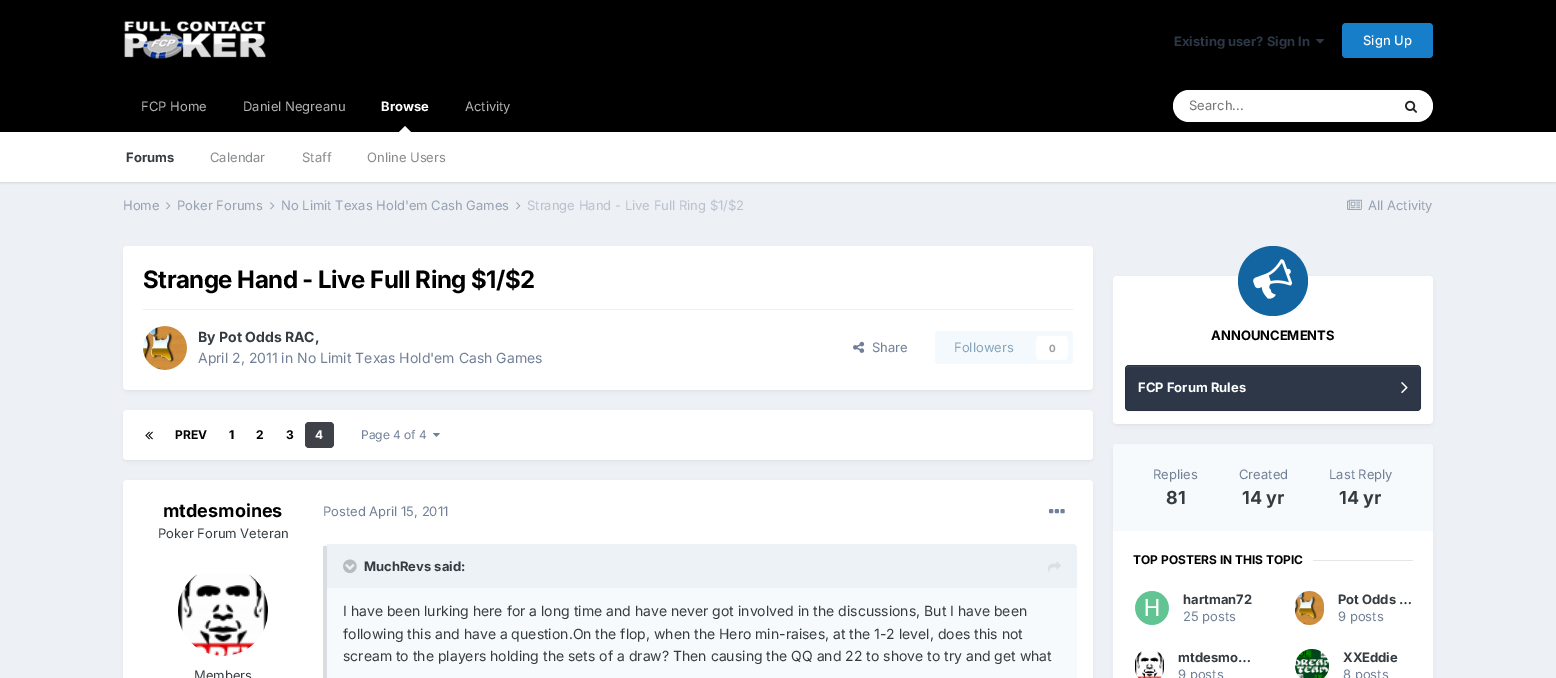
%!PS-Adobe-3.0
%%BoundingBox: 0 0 1556 678
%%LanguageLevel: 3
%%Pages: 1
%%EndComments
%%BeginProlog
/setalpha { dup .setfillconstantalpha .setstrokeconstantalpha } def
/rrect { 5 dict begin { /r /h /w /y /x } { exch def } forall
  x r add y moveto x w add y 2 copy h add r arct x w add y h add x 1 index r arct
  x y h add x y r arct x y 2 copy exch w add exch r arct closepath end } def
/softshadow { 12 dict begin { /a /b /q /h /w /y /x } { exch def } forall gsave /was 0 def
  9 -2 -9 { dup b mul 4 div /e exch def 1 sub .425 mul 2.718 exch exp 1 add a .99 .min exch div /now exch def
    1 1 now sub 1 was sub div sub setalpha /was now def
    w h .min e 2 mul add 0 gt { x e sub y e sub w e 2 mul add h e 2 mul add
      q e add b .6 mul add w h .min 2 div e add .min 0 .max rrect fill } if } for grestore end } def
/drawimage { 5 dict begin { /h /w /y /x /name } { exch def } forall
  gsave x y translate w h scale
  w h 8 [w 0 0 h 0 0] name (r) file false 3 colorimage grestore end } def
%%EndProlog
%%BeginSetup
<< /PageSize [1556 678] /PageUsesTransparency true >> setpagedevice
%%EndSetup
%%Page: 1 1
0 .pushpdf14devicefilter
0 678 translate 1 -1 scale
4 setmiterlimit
0.929 0.941 0.957 setrgbcolor
0 0 1556 678 rectfill
0 setgray
0 0 1556 132 rectfill
(images/1.raw) 124 21 142 38 drawimage
(images/2.raw) 1316 39 8 5 drawimage
0.09 0.494 0.788 setrgbcolor
1342 23 91 35 4 rrect fill
0 setgray
0 133 1556 50 0 1 0.1 softshadow
1 setgray
newpath 411 132 moveto 399 132 lineto 405 126 lineto closepath fill
1173 90 260 32 16 rrect fill
(images/3.raw) 1405 100 12 13 drawimage
0 132 1556 50 rectfill
(images/4.raw) 166 202 5 8 drawimage
(images/4.raw) 270 202 5 8 drawimage
(images/4.raw) 516 202 5 8 drawimage
(images/5.raw) 1347 199 15 11 drawimage
0.176 0.216 0.282 setrgbcolor
124 249 968 142 3 2 0.1 softshadow
1 setgray
123 246 970 144 4 rrect fill
0.937 0.937 0.941 setrgbcolor
143 309 930 1 rectfill
(images/6.raw) 143 326 44 44 drawimage
(images/7.raw) 853 341 12 12 drawimage
0.957 0.976 0.992 setrgbcolor
935 331 138 33 4 rrect fill
1 setgray
1036 336 32 24 4 rrect fill
0.176 0.216 0.282 setrgbcolor
124 413 968 48 3 2 0.1 softshadow
1 setgray
123 410 970 50 4 rrect fill
(images/8.raw) 145 431 8 9 drawimage
0.243 0.255 0.282 setrgbcolor
305 422 29 26 4 rrect fill
(images/9.raw) 433 433 7 4 drawimage
0.176 0.216 0.282 setrgbcolor
124 483 968 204 3 2 0.1 softshadow
1 setgray
123 480 970 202 4 rrect fill
(images/10.raw) 178 574 90 82 drawimage
(images/11.raw) 1049 509 16 5 drawimage
0.969 0.98 0.988 setrgbcolor
323 544 754 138 4 rrect fill
0.15 setalpha
0.176 0.216 0.282 setrgbcolor
323 546 4 132 rectfill
1 setalpha
0.929 0.949 0.969 setrgbcolor
newpath 327 544 moveto 1073 544 lineto 1075 544 1077 546 1077 548 curveto 1077 588 lineto 327 588 lineto closepath fill
(images/12.raw) 343 559 14 15 drawimage
(images/13.raw) 1048 561 13 12 drawimage
0.176 0.216 0.282 setrgbcolor
1114 279 318 146 3 2 0.1 softshadow
1 setgray
1113 276 320 148 4 rrect fill
0.071 0.396 0.631 setrgbcolor
newpath 1273 281 35 0 360 arc closepath fill
(images/14.raw) 1253 259 39 40 drawimage
0.176 0.216 0.282 setrgbcolor
1125 365 296 46 4 rrect fill
0.259 0.294 0.353 setrgbcolor
newpath 1129 367 moveto 1417 367 lineto 1419 367 1420 368 1420 370 curveto 1419 367 lineto 1418 366 lineto 1129 366 lineto 1127 366 1126 368 1126 370 curveto 1126 368 1127 367 1129 367 curveto closepath fill
0.1 setalpha
0 setgray
1125.5 365.5 295 45 3.5 rrect stroke
1 setalpha
(images/15.raw) 1401 382 7 12 drawimage
0.176 0.216 0.282 setrgbcolor
1114 447 318 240 3 2 0.1 softshadow
1 setgray
1113 444 320 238 4 rrect fill
0.969 0.98 0.988 setrgbcolor
newpath 1117 444 moveto 1429 444 lineto 1431 444 1433 446 1433 448 curveto 1433 531 lineto 1113 531 lineto 1113 448 lineto 1113 446 1115 444 1117 444 curveto closepath fill
0.902 setgray
1313 560 100 1 rectfill
(images/16.raw) 1135 591 34 34 drawimage
(images/17.raw) 1295 591 29 34 drawimage
(images/18.raw) 1135 651 29 27 drawimage
(images/19.raw) 1295 649 34 29 drawimage
/Inter-Bold [13 0 0 -13 0 0] selectfont
0.176 0.216 0.282 setrgbcolor
1174 46 moveto (Existing user? Sign In) show
/Inter-Medium [13 0 0 -13 0 0] selectfont
1 setgray
1363 45 moveto (Sign Up) show
/Inter-Bold [13 0 0 -13 0 0] selectfont
381 111 moveto (Browse) show
0.208 0.235 0.255 setrgbcolor
126 162 moveto (Forums) show
/Inter-Regular [13 0 0 -13 0 0] selectfont
0.525 0.541 0.553 setrgbcolor
210 162 moveto (Calendar) show
302 162 moveto (Staff) show
367 162 moveto (Online Users) show
0.702 setgray
141 111 moveto (FCP Home) show
243 111 moveto (Daniel Negreanu) show
465 111 moveto (Activity) show
0.459 setgray
1189 110 moveto (Search...) show
0.588 0.635 0.698 setrgbcolor
123 210 moveto (Home) show
177 210 moveto (Poker Forums) show
281 210 moveto (No Limit Texas Hold'em Cash Games) show
0.725 0.757 0.804 setrgbcolor
527 210 moveto (Strange Hand - Live Full Ring $1/$2) show
0.588 0.635 0.698 setrgbcolor
1368 210 moveto (All Activity) show
/Inter-Bold [24 0 0 -24 0 0] selectfont
0 setgray
143 288 moveto -0.5 0 (Strange Hand - Live Full Ring $1/$2) ashow
/Inter-Bold [14 0 0 -14 0 0] selectfont
0.208 0.235 0.255 setrgbcolor
198 342 moveto (By Pot Odds RAC,) show
/Inter-Regular [14 0 0 -14 0 0] selectfont
0.443 0.502 0.588 setrgbcolor
198 363 moveto (April 2, 2011 in No Limit Texas Hold'em Cash Games) show
/Inter-Regular [13 0 0 -13 0 0] selectfont
872 352 moveto (Share) show
0.529 0.651 0.737 setrgbcolor
954 352 moveto (Followers) show
/Inter-Bold [10 0 0 -10 0 0] selectfont
0.604 0.62 0.627 setrgbcolor
1049 352 moveto (0) show
/Inter-Bold [12 0 0 -12 0 0] selectfont
0 setgray
175 439 moveto (PREV) show
229 439 moveto (1) show
256 439 moveto (2) show
286 439 moveto (3) show
1 setgray
315 439 moveto (4) show
/Inter-Regular [12 0 0 -12 0 0] selectfont
0.443 0.502 0.588 setrgbcolor
361 439 moveto (Page 4 of 4) show
/Inter-Bold [18 0 0 -18 0 0] selectfont
0 setgray
163 517 moveto (mtdesmoines) show
/Inter-Regular [13 0 0 -13 0 0] selectfont
0.208 0.235 0.255 setrgbcolor
158 538 moveto (Poker Forum Veteran) show
194 680 moveto (Members) show
0.443 0.502 0.588 setrgbcolor
323 516 moveto (Posted April 15, 2011) show
/Inter-Bold [13 0 0 -13 0 0] selectfont
0.208 0.235 0.255 setrgbcolor
364 571 moveto (MuchRevs said:) show
/Inter-Regular [14 0 0 -14 0 0] selectfont
343 616 moveto (I have been lurking here for a long time and have never got involved in the discussions, But I have been) show
343 639 moveto (following this and have a question.On the flop, when the Hero min-raises, at the 1-2 level, does this not) show
343 661 moveto (scream to the players holding the sets of a draw? Then causing the QQ and 22 to shove to try and get what) show
/Inter-Bold [13 0 0 -13 0 0] selectfont
0 setgray
1211 340 moveto (ANNOUNCEMENTS) show
1 setgray
1138 392 moveto (FCP Forum Rules) show
/Inter-Regular [13 0 0 -13 0 0] selectfont
0.443 0.502 0.588 setrgbcolor
1153 479 moveto (Replies) show
/Inter-Bold [18 0 0 -18 0 0] selectfont
0.208 0.235 0.255 setrgbcolor
1166 504 moveto (81) show
/Inter-Regular [13 0 0 -13 0 0] selectfont
0.443 0.502 0.588 setrgbcolor
1239 479 moveto (Created) show
/Inter-Bold [18 0 0 -18 0 0] selectfont
0.208 0.235 0.255 setrgbcolor
1242 504 moveto (14 yr) show
/Inter-Regular [13 0 0 -13 0 0] selectfont
0.443 0.502 0.588 setrgbcolor
1329 479 moveto (Last Reply) show
/Inter-Bold [18 0 0 -18 0 0] selectfont
0.208 0.235 0.255 setrgbcolor
1339 504 moveto (14 yr) show
/Inter-Bold [12 0 0 -12 0 0] selectfont
0 setgray
1133 564 moveto (TOP POSTERS IN THIS TOPIC) show
/Inter-Bold [13 0 0 -13 0 0] selectfont
0.208 0.235 0.255 setrgbcolor
1183 604 moveto (hartman72) show
/Inter-Regular [13 0 0 -13 0 0] selectfont
0.443 0.502 0.588 setrgbcolor
1183 621 moveto (25 posts) show
/Inter-Bold [13 0 0 -13 0 0] selectfont
0.208 0.235 0.255 setrgbcolor
1338 604 moveto (Pot Odds …) show
/Inter-Regular [13 0 0 -13 0 0] selectfont
0.443 0.502 0.588 setrgbcolor
1338 621 moveto (9 posts) show
/Inter-Bold [13 0 0 -13 0 0] selectfont
0.208 0.235 0.255 setrgbcolor
1178 662 moveto (mtdesmo…) show
/Inter-Regular [13 0 0 -13 0 0] selectfont
0.443 0.502 0.588 setrgbcolor
1178 679 moveto (9 posts) show
/Inter-Bold [13 0 0 -13 0 0] selectfont
0.208 0.235 0.255 setrgbcolor
1343 662 moveto (XXEddie) show
/Inter-Regular [13 0 0 -13 0 0] selectfont
0.443 0.502 0.588 setrgbcolor
1343 679 moveto (8 posts) show
.poppdf14devicefilter showpage
%%EOF
